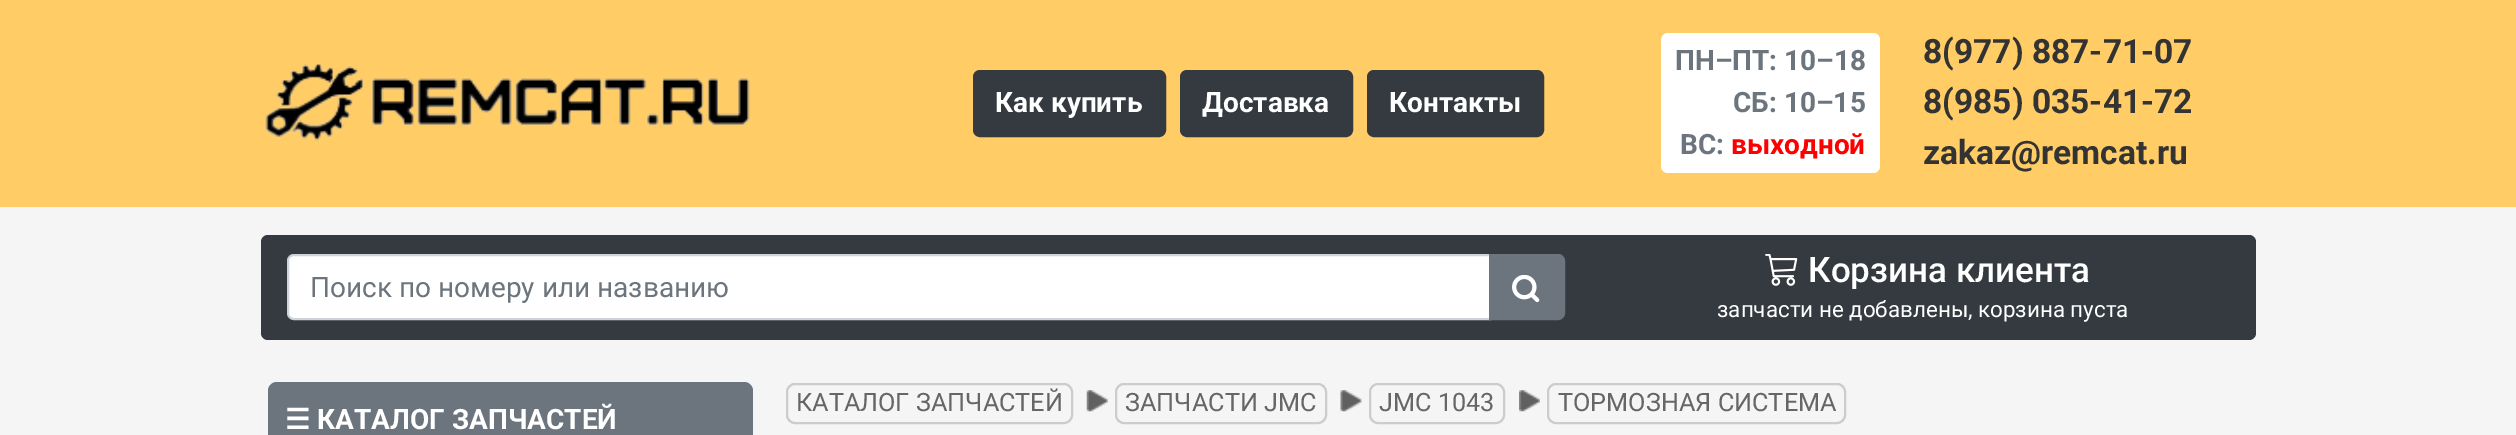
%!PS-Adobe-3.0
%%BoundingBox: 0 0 2516 435
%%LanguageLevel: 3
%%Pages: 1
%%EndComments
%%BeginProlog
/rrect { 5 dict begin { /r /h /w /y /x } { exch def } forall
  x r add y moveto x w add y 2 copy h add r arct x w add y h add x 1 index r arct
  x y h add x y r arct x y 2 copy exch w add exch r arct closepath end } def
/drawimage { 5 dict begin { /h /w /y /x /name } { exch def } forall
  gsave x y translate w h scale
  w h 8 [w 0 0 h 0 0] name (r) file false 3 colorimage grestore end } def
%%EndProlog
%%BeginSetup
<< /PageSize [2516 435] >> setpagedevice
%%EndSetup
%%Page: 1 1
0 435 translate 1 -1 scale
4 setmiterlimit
0.961 setgray
0 0 2516 435 rectfill
1 0.8 0.4 setrgbcolor
0 0 2516 207 rectfill
(images/1.raw) 265 63 485 78 drawimage
0.204 0.227 0.251 setrgbcolor
974 71 191 65 6 rrect gsave fill grestore
2 setlinewidth
stroke
1181 71 171 65 6 rrect gsave fill grestore
stroke
1368 71 175 65 6 rrect gsave fill grestore
stroke
1 setgray
1661 33 219 140 7 rrect fill
0.204 0.227 0.251 setrgbcolor
261 235 1995 105 7 rrect fill
1 setgray
newpath 294 255 moveto 1490 255 lineto 1490 319 lineto 294 319 lineto 290.5 319 288 316.5 288 313 curveto 288 261 lineto 288 257.5 290.5 255 294 255 curveto closepath gsave fill grestore
0.808 0.831 0.855 setrgbcolor
stroke
0.424 0.459 0.49 setrgbcolor
newpath 1490 255 moveto 1558 255 lineto 1561.5 255 1564 257.5 1564 261 curveto 1564 313 lineto 1564 316.5 1561.5 319 1558 319 curveto 1490 319 lineto closepath gsave fill grestore
stroke
(images/2.raw) 1512 275 28 28 drawimage
(images/3.raw) 1765 254 33 32 drawimage
0.8 setgray
787 384 285 39 8 rrect stroke
(images/4.raw) 1086 390 22 22 drawimage
1116 384 210 39 8 rrect stroke
(images/5.raw) 1340 390 22 22 drawimage
1370 384 134 39 8 rrect stroke
(images/6.raw) 1519 390 21 22 drawimage
1548 384 297 39 8 rrect stroke
0.424 0.459 0.49 setrgbcolor
newpath 277 382 moveto 744 382 lineto 749 382 753 386 753 391 curveto 753 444 lineto 268 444 lineto 268 391 lineto 268 386 272 382 277 382 curveto closepath fill
/Roboto-Bold [28 0 0 -28 0 0] selectfont
1 setgray
995 112 moveto (Как купить) show
1202 112 moveto (Доставка) show
1389 112 moveto (Контакты) show
0.424 0.459 0.49 setrgbcolor
1675 70 moveto (ПН–ПТ: 10–18) show
1733 112 moveto (СБ: 10–15) show
1680 154 moveto (ВС:) show
1 0 0 setrgbcolor
1731 154 moveto (выходной) show
/Roboto-Bold [33.5 0 0 -33.5 0 0] selectfont
0.2 setgray
1923 63 moveto (8\(977\) 887-71-07) show
1923 113 moveto (8\(985\) 035-41-72) show
1923 164 moveto (zakaz@remcat.ru) show
/Roboto-Regular [28 0 0 -28 0 0] selectfont
0.424 0.459 0.49 setrgbcolor
310 297 moveto (Поиск по номеру или названию) show
/Roboto-Medium [35 0 0 -35 0 0] selectfont
1 setgray
1808 282 moveto (Корзина клиента) show
/Roboto-Regular [22.4 0 0 -22.4 0 0] selectfont
1717 317 moveto (запчасти не добавлены, корзина пуста) show
/Roboto-Regular [25.25 0 0 -25.25 0 0] selectfont
0.4 setgray
796 411 moveto (КАТАЛОГ ЗАПЧАСТЕЙ) show
1125 411 moveto (ЗАПЧАСТИ JMC) show
1379 411 moveto (JMC 1043) show
1558 411 moveto (ТОРМОЗНАЯ СИСТЕМА) show
/DejaVuSans-Bold [28 0 0 -28 0 0] selectfont
1 setgray
285 429 moveto (☰) show
/Roboto-Bold [28 0 0 -28 0 0] selectfont
317 429 moveto (КАТАЛОГ ЗАПЧАСТЕЙ) show
showpage
%%EOF
